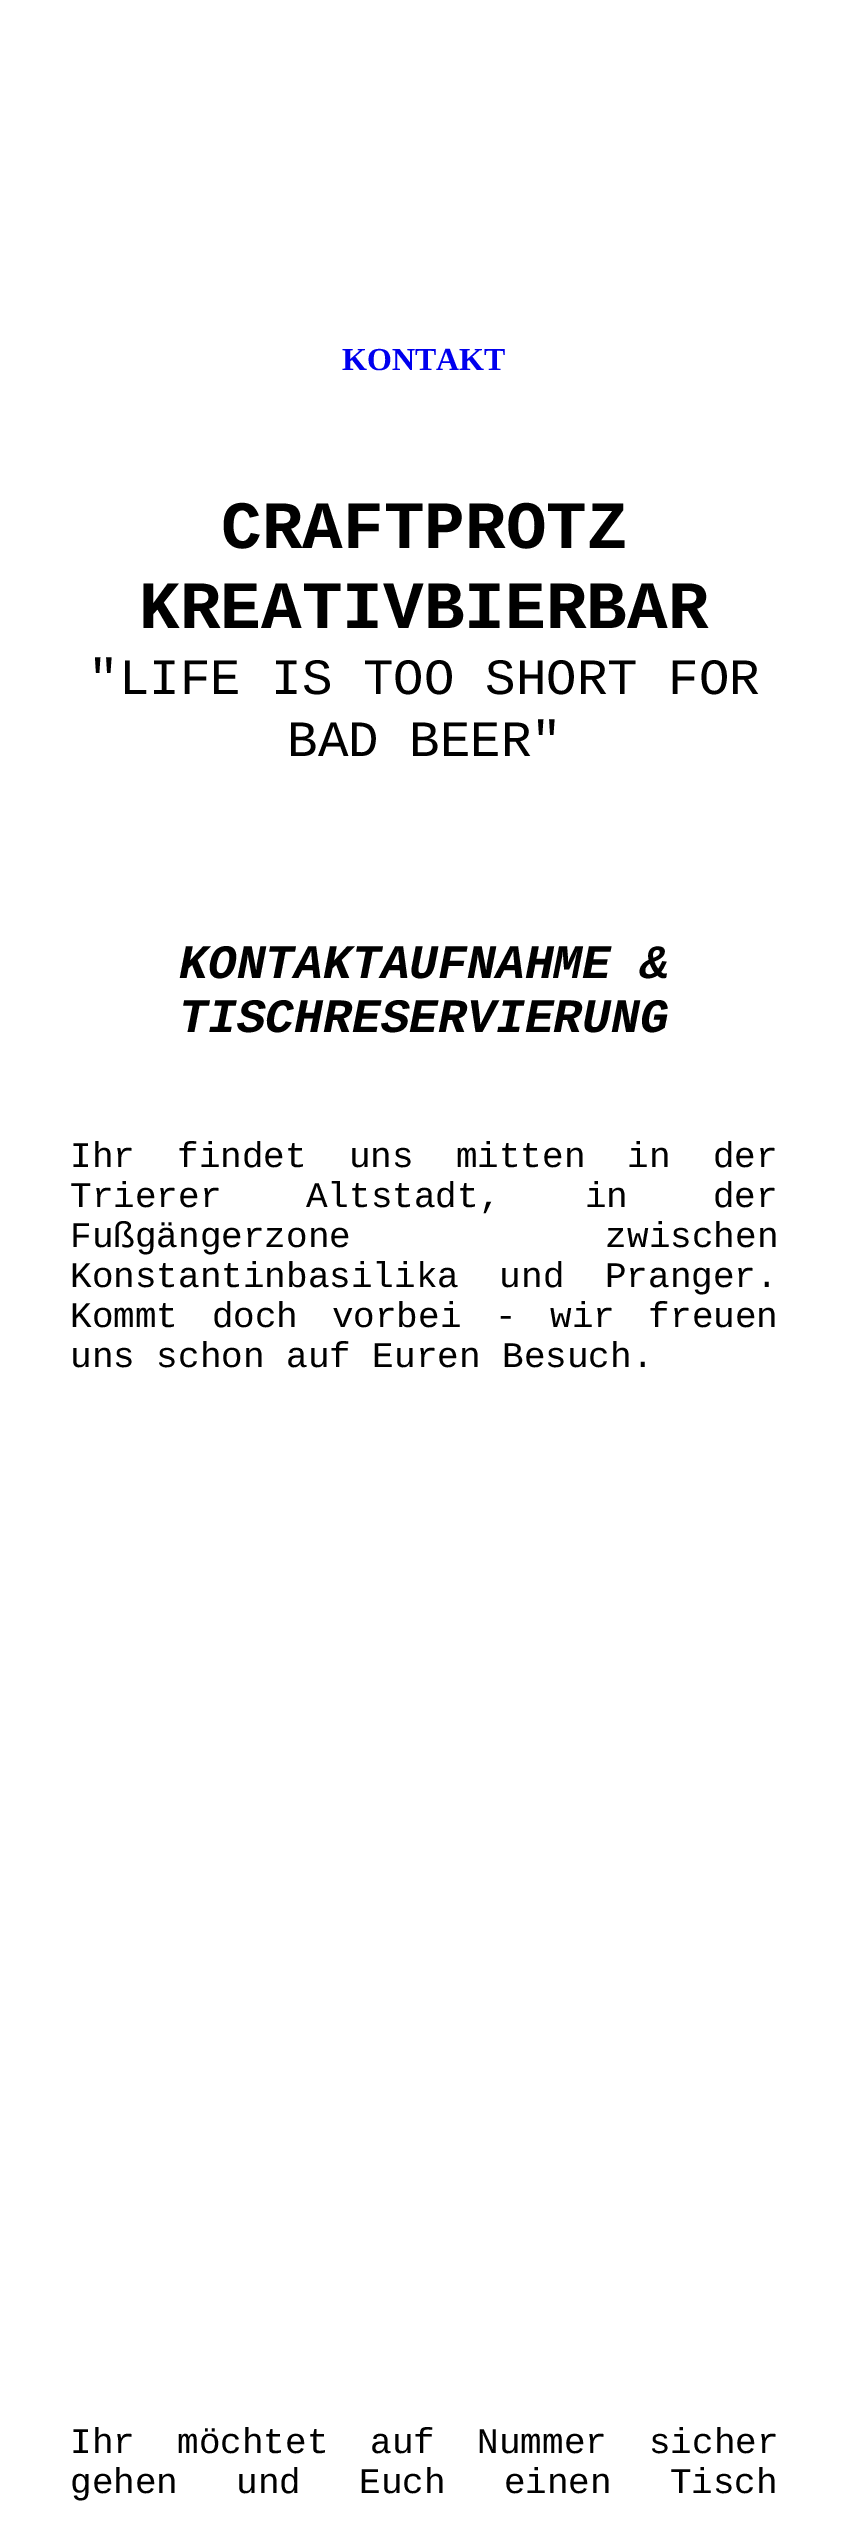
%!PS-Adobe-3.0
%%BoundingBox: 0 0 847 2521
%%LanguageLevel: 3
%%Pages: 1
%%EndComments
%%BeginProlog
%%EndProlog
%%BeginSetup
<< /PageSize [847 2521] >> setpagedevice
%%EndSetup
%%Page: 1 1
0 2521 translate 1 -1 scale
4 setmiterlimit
1 setgray
0 0 847 2521 rectfill
/LiberationSerif-Bold [32 0 0 -32 0 0] selectfont
0 0 0.933 setrgbcolor
342 370 moveto (KONTAKT) show
/LiberationMono-Bold [67.75 0 0 -67.75 0 0] selectfont
0 setgray
221 548 moveto (CRAFTPROTZ) show
139 628 moveto (KREATIVBIERBAR) show
/LiberationMono-Regular [50.9 0 0 -50.9 0 0] selectfont
88 694 moveto ("LIFE IS TOO SHORT FOR) show
287 756 moveto (BAD BEER") show
/LiberationMono-BoldItalic [48 0 0 -48 0 0] selectfont
179 978 moveto (KONTAKTAUFNAHME &) show
179 1032 moveto (TISCHRESERVIERUNG) show
/LiberationMono-Regular [36 0 0 -36 0 0] selectfont
70 1167 moveto 20.5 0 32 (Ihr findet uns mitten in der) widthshow
70 1207 moveto 63 0 32 (Trierer Altstadt, in der) widthshow
70 1247 moveto 233 0 32 (Fußgängerzone zwischen) widthshow
70 1287 moveto 19 0 32 (Konstantinbasilika und Pranger.) widthshow
70 1327 moveto 12 0 32 (Kommt doch vorbei - wir freuen) widthshow
70 1367 moveto (uns schon auf Euren Besuch.) show
70 2453 moveto 20.5 0 32 (Ihr möchtet auf Nummer sicher) widthshow
70 2493 moveto 36.5 0 32 (gehen und Euch einen Tisch) widthshow
showpage
%%EOF
